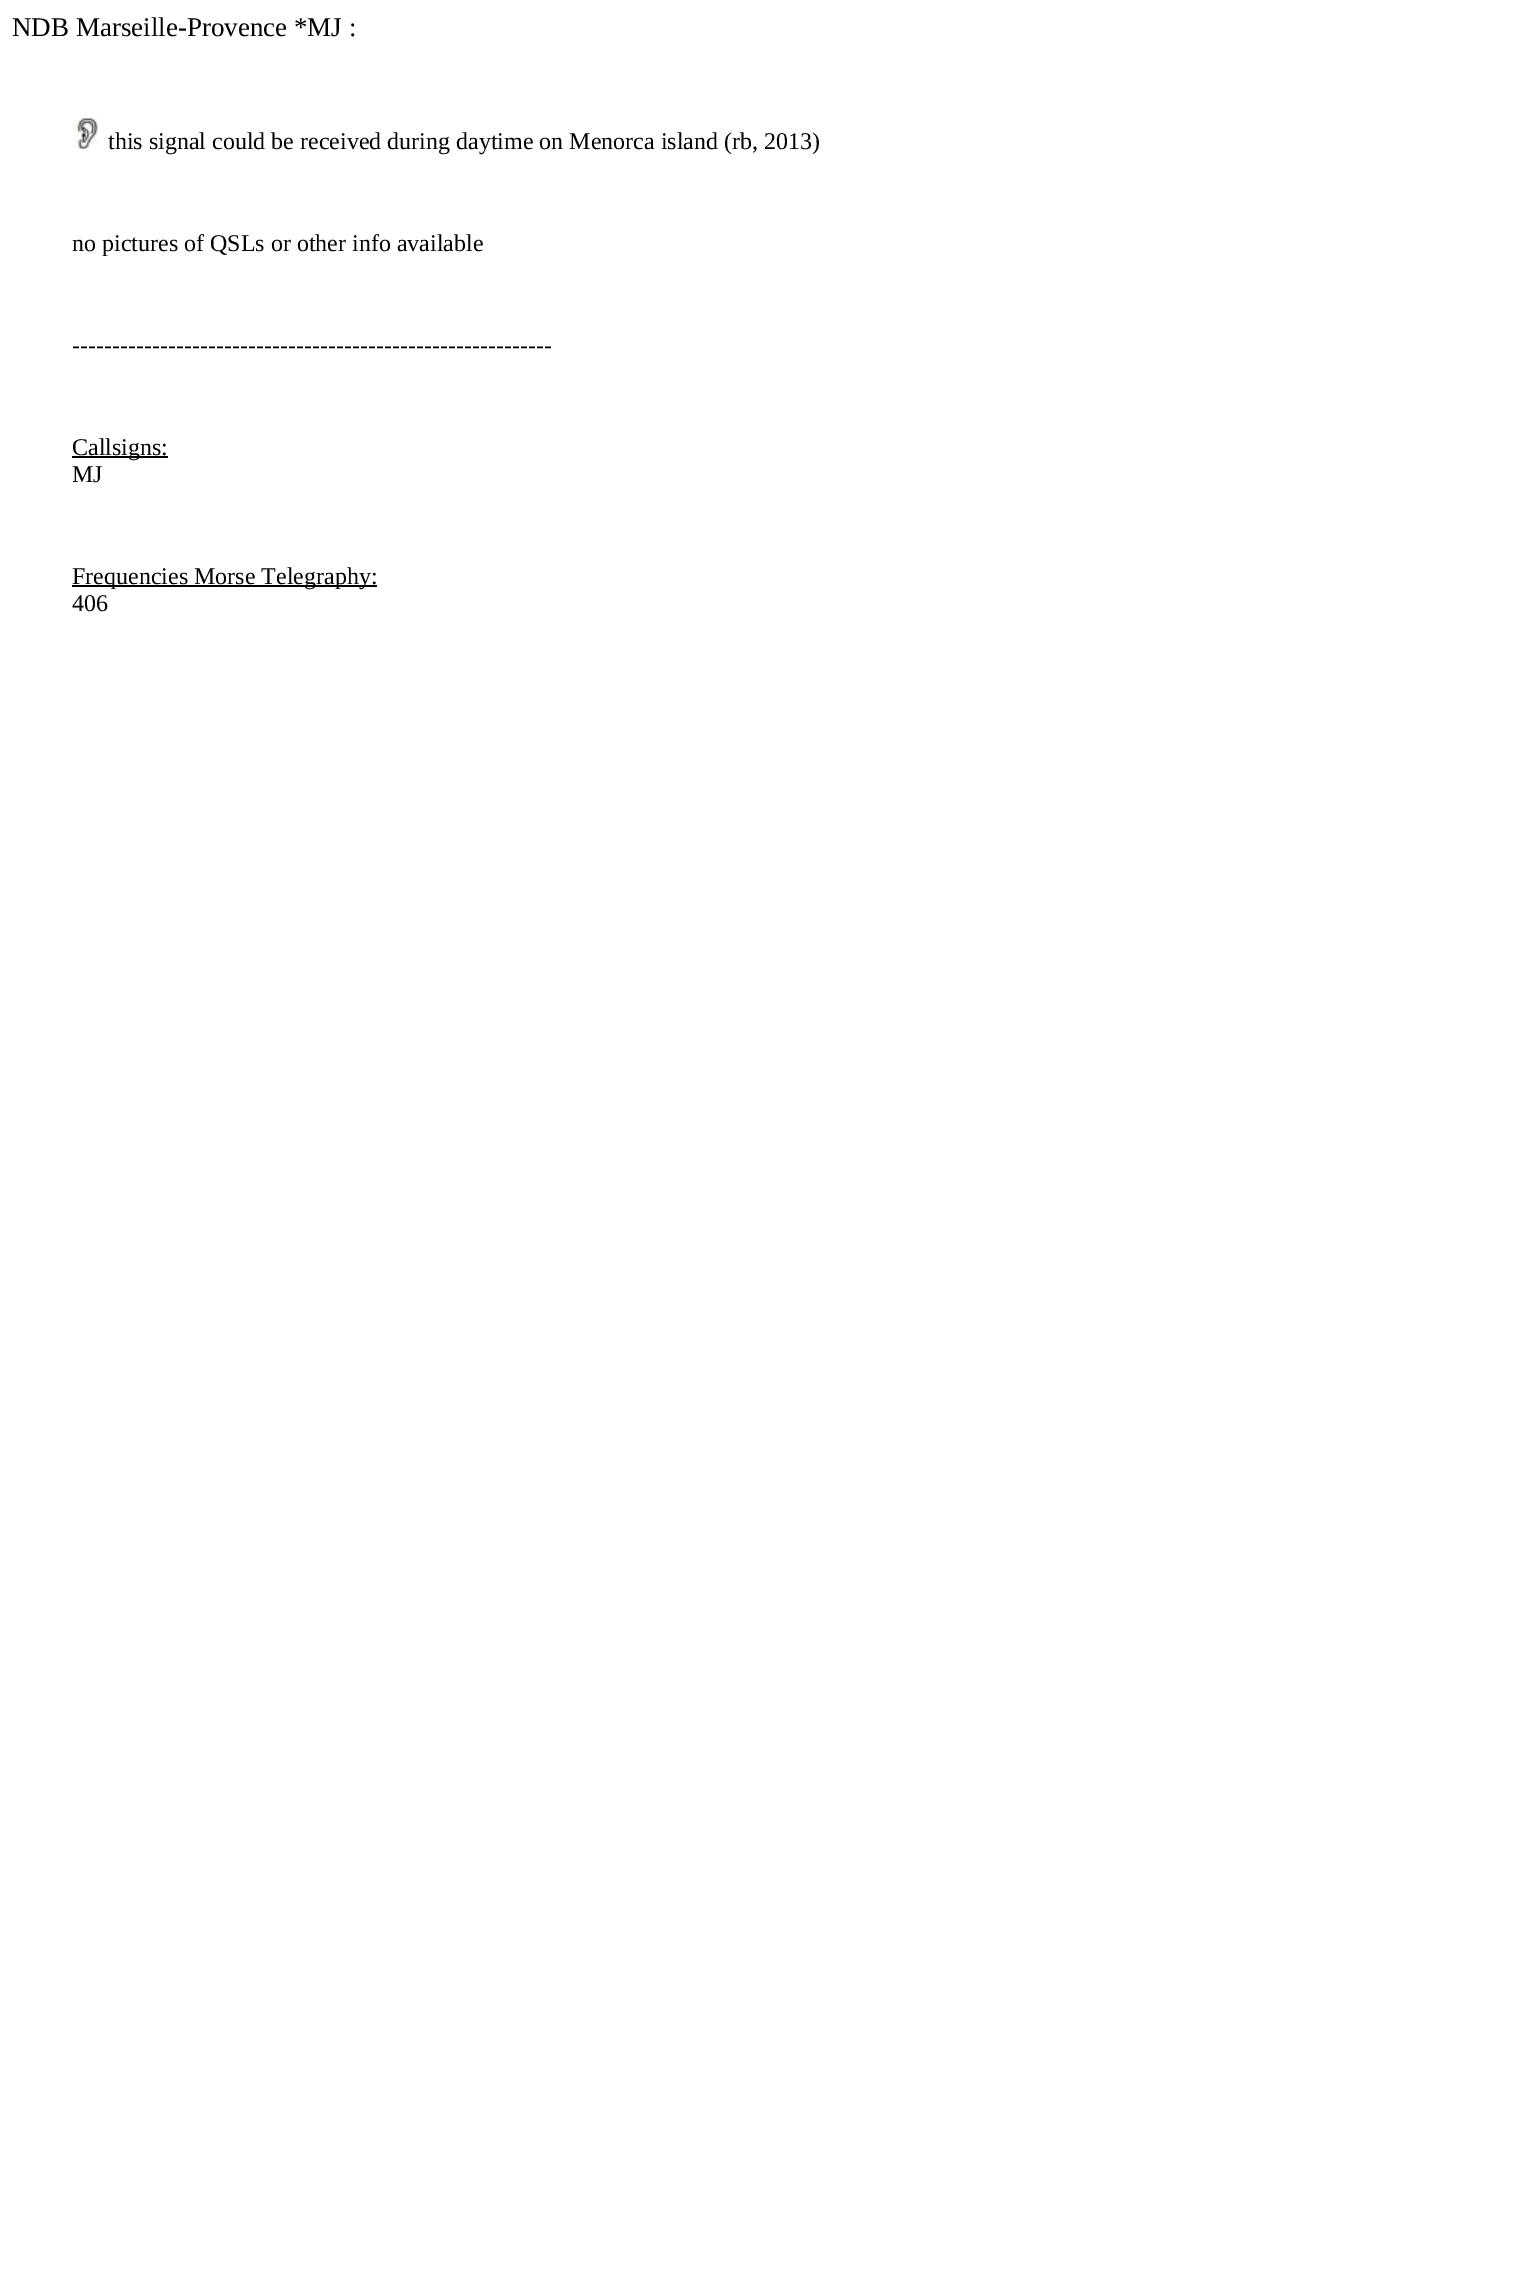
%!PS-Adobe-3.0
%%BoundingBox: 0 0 1533 2269
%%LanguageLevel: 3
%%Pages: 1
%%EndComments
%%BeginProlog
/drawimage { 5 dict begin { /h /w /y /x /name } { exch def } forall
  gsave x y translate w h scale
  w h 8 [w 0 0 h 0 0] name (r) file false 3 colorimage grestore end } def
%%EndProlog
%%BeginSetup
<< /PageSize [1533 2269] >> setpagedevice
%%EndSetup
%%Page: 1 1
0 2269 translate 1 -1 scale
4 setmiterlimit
1 setgray
0 0 1533 2269 rectfill
(images/1.raw) 72 118 28 31 drawimage
0 setgray
72 456 96 2 rectfill
72 585 305 2 rectfill
/LiberationSerif-Regular [27 0 0 -27 0 0] selectfont
12 36 moveto (NDB Marseille-Provence *MJ :) show
/LiberationSerif-Regular [24 0 0 -24 0 0] selectfont
108 149 moveto (this signal could be received during daytime on Menorca island \(rb, 2013\)) show
72 251 moveto (no pictures of QSLs or other info available) show
72 353 moveto (------------------------------------------------------------) show
72 455 moveto (Callsigns:) show
72 482 moveto (MJ) show
72 584 moveto (Frequencies Morse Telegraphy:) show
72 611 moveto (406) show
showpage
%%EOF
